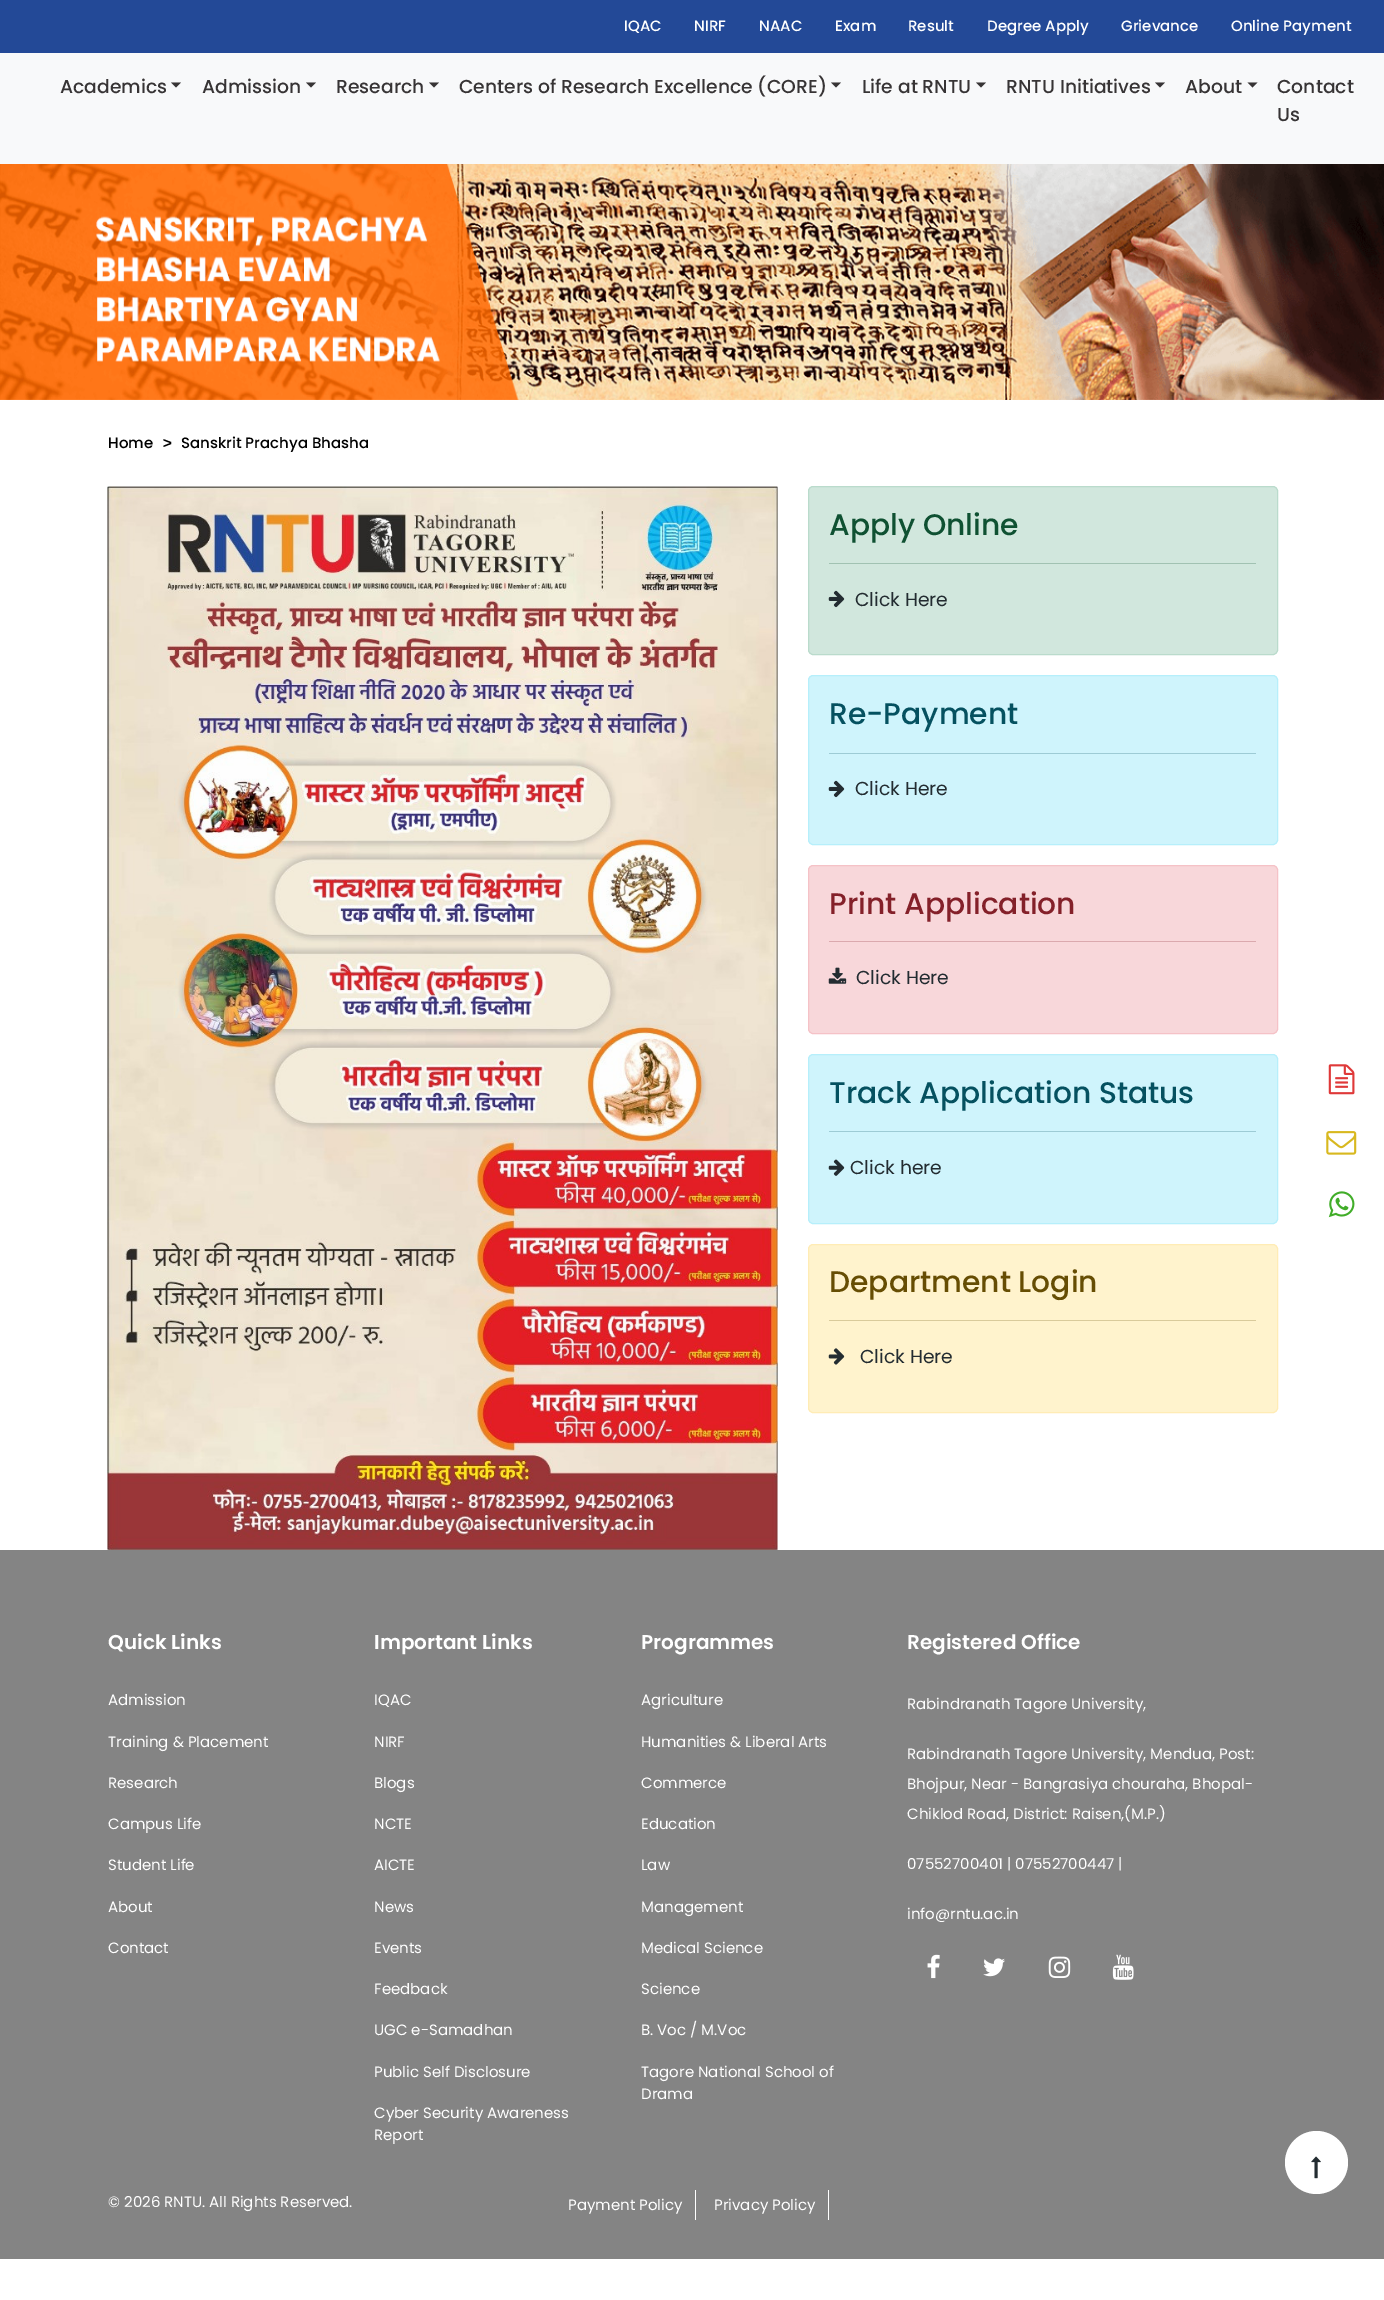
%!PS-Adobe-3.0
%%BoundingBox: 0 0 1384 2300
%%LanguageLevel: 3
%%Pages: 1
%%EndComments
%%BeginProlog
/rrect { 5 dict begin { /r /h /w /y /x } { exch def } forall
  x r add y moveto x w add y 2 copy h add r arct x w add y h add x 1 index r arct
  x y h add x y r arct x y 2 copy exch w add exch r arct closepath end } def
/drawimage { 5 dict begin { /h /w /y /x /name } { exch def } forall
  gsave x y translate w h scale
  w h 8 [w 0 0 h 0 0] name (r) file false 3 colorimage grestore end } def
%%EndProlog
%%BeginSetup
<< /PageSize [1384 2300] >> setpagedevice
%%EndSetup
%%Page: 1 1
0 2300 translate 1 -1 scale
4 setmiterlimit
1 setgray
0 0 1384 2300 rectfill
0.973 0.976 0.98 setrgbcolor
0 53 1384 111 rectfill
0.137 0.286 0.592 setrgbcolor
0 0 1384 53 rectfill
0.216 0.204 0.208 setrgbcolor
newpath 171 82.5 moveto 181 82.5 lineto 176 87.5 lineto closepath fill
newpath 306 82.5 moveto 316 82.5 lineto 311 87.5 lineto closepath fill
newpath 429 82.5 moveto 439 82.5 lineto 434 87.5 lineto closepath fill
newpath 831 82.5 moveto 841 82.5 lineto 836 87.5 lineto closepath fill
newpath 976 82.5 moveto 986 82.5 lineto 981 87.5 lineto closepath fill
newpath 1155 82.5 moveto 1165 82.5 lineto 1160 87.5 lineto closepath fill
newpath 1247.5 82.5 moveto 1257.5 82.5 lineto 1252.5 87.5 lineto closepath fill
(images/1.raw) 0 164 1384 236 drawimage
(images/2.raw) 107 486 671 1064 drawimage
0.82 0.906 0.867 setrgbcolor
808.5 486.5 469 168 4.5 rrect gsave fill grestore
0.729 0.859 0.8 setrgbcolor
stroke
0.631 0.761 0.698 setrgbcolor
829 563 427 1 rectfill
(images/3.raw) 828 590 17 18 drawimage
0.812 0.957 0.988 setrgbcolor
808.5 675.5 469 169 4.5 rrect gsave fill grestore
0.714 0.937 0.984 setrgbcolor
stroke
0.616 0.796 0.835 setrgbcolor
829 753 427 1 rectfill
(images/4.raw) 828 780 17 18 drawimage
0.973 0.843 0.855 setrgbcolor
808.5 865.5 469 168 4.5 rrect gsave fill grestore
0.961 0.761 0.78 setrgbcolor
stroke
0.859 0.663 0.682 setrgbcolor
829 941 427 1 rectfill
(images/5.raw) 828 967 19 17 drawimage
0.812 0.957 0.988 setrgbcolor
808.5 1054.5 469 169 4.5 rrect gsave fill grestore
0.714 0.937 0.984 setrgbcolor
stroke
0.616 0.796 0.835 setrgbcolor
829 1131 427 1 rectfill
(images/6.raw) 828 1159 17 17 drawimage
1 0.953 0.804 setrgbcolor
808.5 1244.5 469 168 4.5 rrect gsave fill grestore
1 0.925 0.71 setrgbcolor
stroke
0.851 0.792 0.608 setrgbcolor
829 1320 427 1 rectfill
(images/7.raw) 828 1348 17 17 drawimage
(images/8.raw) 1328 1064 27 31 drawimage
(images/9.raw) 1326 1131 31 24 drawimage
(images/10.raw) 1328 1191 27 27 drawimage
0.518 setgray
0 1550 1384 709 rectfill
(images/11.raw) 927 1954 13 25 drawimage
(images/12.raw) 983 1958 22 19 drawimage
(images/13.raw) 1048 1956 23 22 drawimage
(images/14.raw) 1112 1954 22 26 drawimage
1 setgray
695 2190 1 30 rectfill
828 2190 1 30 rectfill
newpath 1316.5 2162.5 31.5 0 360 arc closepath fill
(images/15.raw) 1311 2156 10 23 drawimage
/Poppins-Medium [15 0 0 -15 0 0] selectfont
624 31 moveto (IQAC) show
694 31 moveto (NIRF) show
759 31 moveto (NAAC) show
835 31 moveto (Exam) show
908 31 moveto (Result) show
987 31 moveto (Degree Apply) show
1121 31 moveto (Grievance) show
1231 31 moveto (Online Payment) show
/Poppins-Medium [18.75 0 0 -18.75 0 0] selectfont
0.216 0.204 0.208 setrgbcolor
60 93 moveto (Academics) show
202 93 moveto (Admission) show
336 93 moveto (Research) show
459 93 moveto (Centers of Research Excellence \(CORE\)) show
862 93 moveto (Life at RNTU) show
1006 93 moveto (RNTU Initiatives) show
1185 93 moveto (About) show
1277 93 moveto (Contact) show
1277 121 moveto (Us) show
/Poppins-Medium [15 0 0 -15 0 0] selectfont
0 setgray
108 448 moveto (Home) show
/LiberationSans-Bold [15 0 0 -15 0 0] selectfont
163 448 moveto (>) show
/Poppins-Medium [15 0 0 -15 0 0] selectfont
181 448 moveto (Sanskrit Prachya Bhasha) show
/Poppins-Medium [29.7 0 0 -29.7 0 0] selectfont
0.059 0.318 0.196 setrgbcolor
829 535 moveto (Apply Online) show
/Poppins-Regular [18.75 0 0 -18.75 0 0] selectfont
0.137 0.173 0.192 setrgbcolor
855 606 moveto (Click Here) show
/Poppins-Medium [29.7 0 0 -29.7 0 0] selectfont
0.02 0.318 0.376 setrgbcolor
829 724 moveto (Re-Payment) show
/Poppins-Regular [18.75 0 0 -18.75 0 0] selectfont
0.137 0.173 0.192 setrgbcolor
855 795 moveto (Click Here) show
/Poppins-Medium [29.7 0 0 -29.7 0 0] selectfont
0.518 0.125 0.161 setrgbcolor
829 914 moveto (Print Application) show
/Poppins-Regular [18.75 0 0 -18.75 0 0] selectfont
0.137 0.173 0.192 setrgbcolor
856 984 moveto (Click Here) show
/Poppins-Medium [29.7 0 0 -29.7 0 0] selectfont
0.02 0.318 0.376 setrgbcolor
829 1103 moveto (Track Application Status) show
/Poppins-Regular [18.75 0 0 -18.75 0 0] selectfont
0.137 0.173 0.192 setrgbcolor
850 1174 moveto (Click here) show
/Poppins-Medium [29.7 0 0 -29.7 0 0] selectfont
0.4 0.302 0.012 setrgbcolor
829 1292 moveto (Department Login) show
/Poppins-Regular [18.75 0 0 -18.75 0 0] selectfont
0.137 0.173 0.192 setrgbcolor
860 1363 moveto (Click Here) show
/Poppins-SemiBold [20 0 0 -20 0 0] selectfont
1 setgray
108 1649 moveto (Quick Links) show
/Poppins-Regular [15 0 0 -15 0 0] selectfont
108 1705 moveto (Admission) show
108 1747 moveto (Training & Placement) show
108 1788 moveto (Research) show
108 1829 moveto (Campus Life) show
108 1870 moveto (Student Life) show
108 1912 moveto (About) show
108 1953 moveto (Contact) show
/Poppins-SemiBold [20 0 0 -20 0 0] selectfont
374 1649 moveto (Important Links) show
/Poppins-Regular [15 0 0 -15 0 0] selectfont
374 1705 moveto (IQAC) show
374 1747 moveto (NIRF) show
374 1788 moveto (Blogs) show
374 1829 moveto (NCTE) show
374 1870 moveto (AICTE) show
374 1912 moveto (News) show
374 1953 moveto (Events) show
374 1994 moveto (Feedback) show
374 2035 moveto (UGC e-Samadhan) show
374 2077 moveto (Public Self Disclosure) show
374 2118 moveto (Cyber Security Awareness) show
374 2140 moveto (Report) show
/Poppins-SemiBold [20 0 0 -20 0 0] selectfont
641 1649 moveto (Programmes) show
/Poppins-Regular [15 0 0 -15 0 0] selectfont
641 1705 moveto (Agriculture) show
641 1747 moveto (Humanities & Liberal Arts) show
641 1788 moveto (Commerce) show
641 1829 moveto (Education) show
641 1870 moveto (Law) show
641 1912 moveto (Management) show
641 1953 moveto (Medical Science) show
641 1994 moveto (Science) show
641 2035 moveto (B. Voc / M.Voc) show
641 2077 moveto (Tagore National School of) show
641 2099 moveto (Drama) show
/Poppins-SemiBold [20 0 0 -20 0 0] selectfont
907 1649 moveto (Registered Office) show
/Poppins-Regular [15 0 0 -15 0 0] selectfont
907 1709 moveto (Rabindranath Tagore University,) show
907 1759 moveto (Rabindranath Tagore University, Mendua, Post:) show
907 1789 moveto (Bhojpur, Near - Bangrasiya chouraha, Bhopal-) show
907 1819 moveto (Chiklod Road, District: Raisen,\(M.P.\)) show
907 1869 moveto (07552700401 | 07552700447 |) show
907 1919 moveto (info@rntu.ac.in) show
108 2207 moveto (© 2026 RNTU. All Rights Reserved.) show
568 2210 moveto (Payment Policy) show
714 2210 moveto (Privacy Policy) show
showpage
%%EOF
